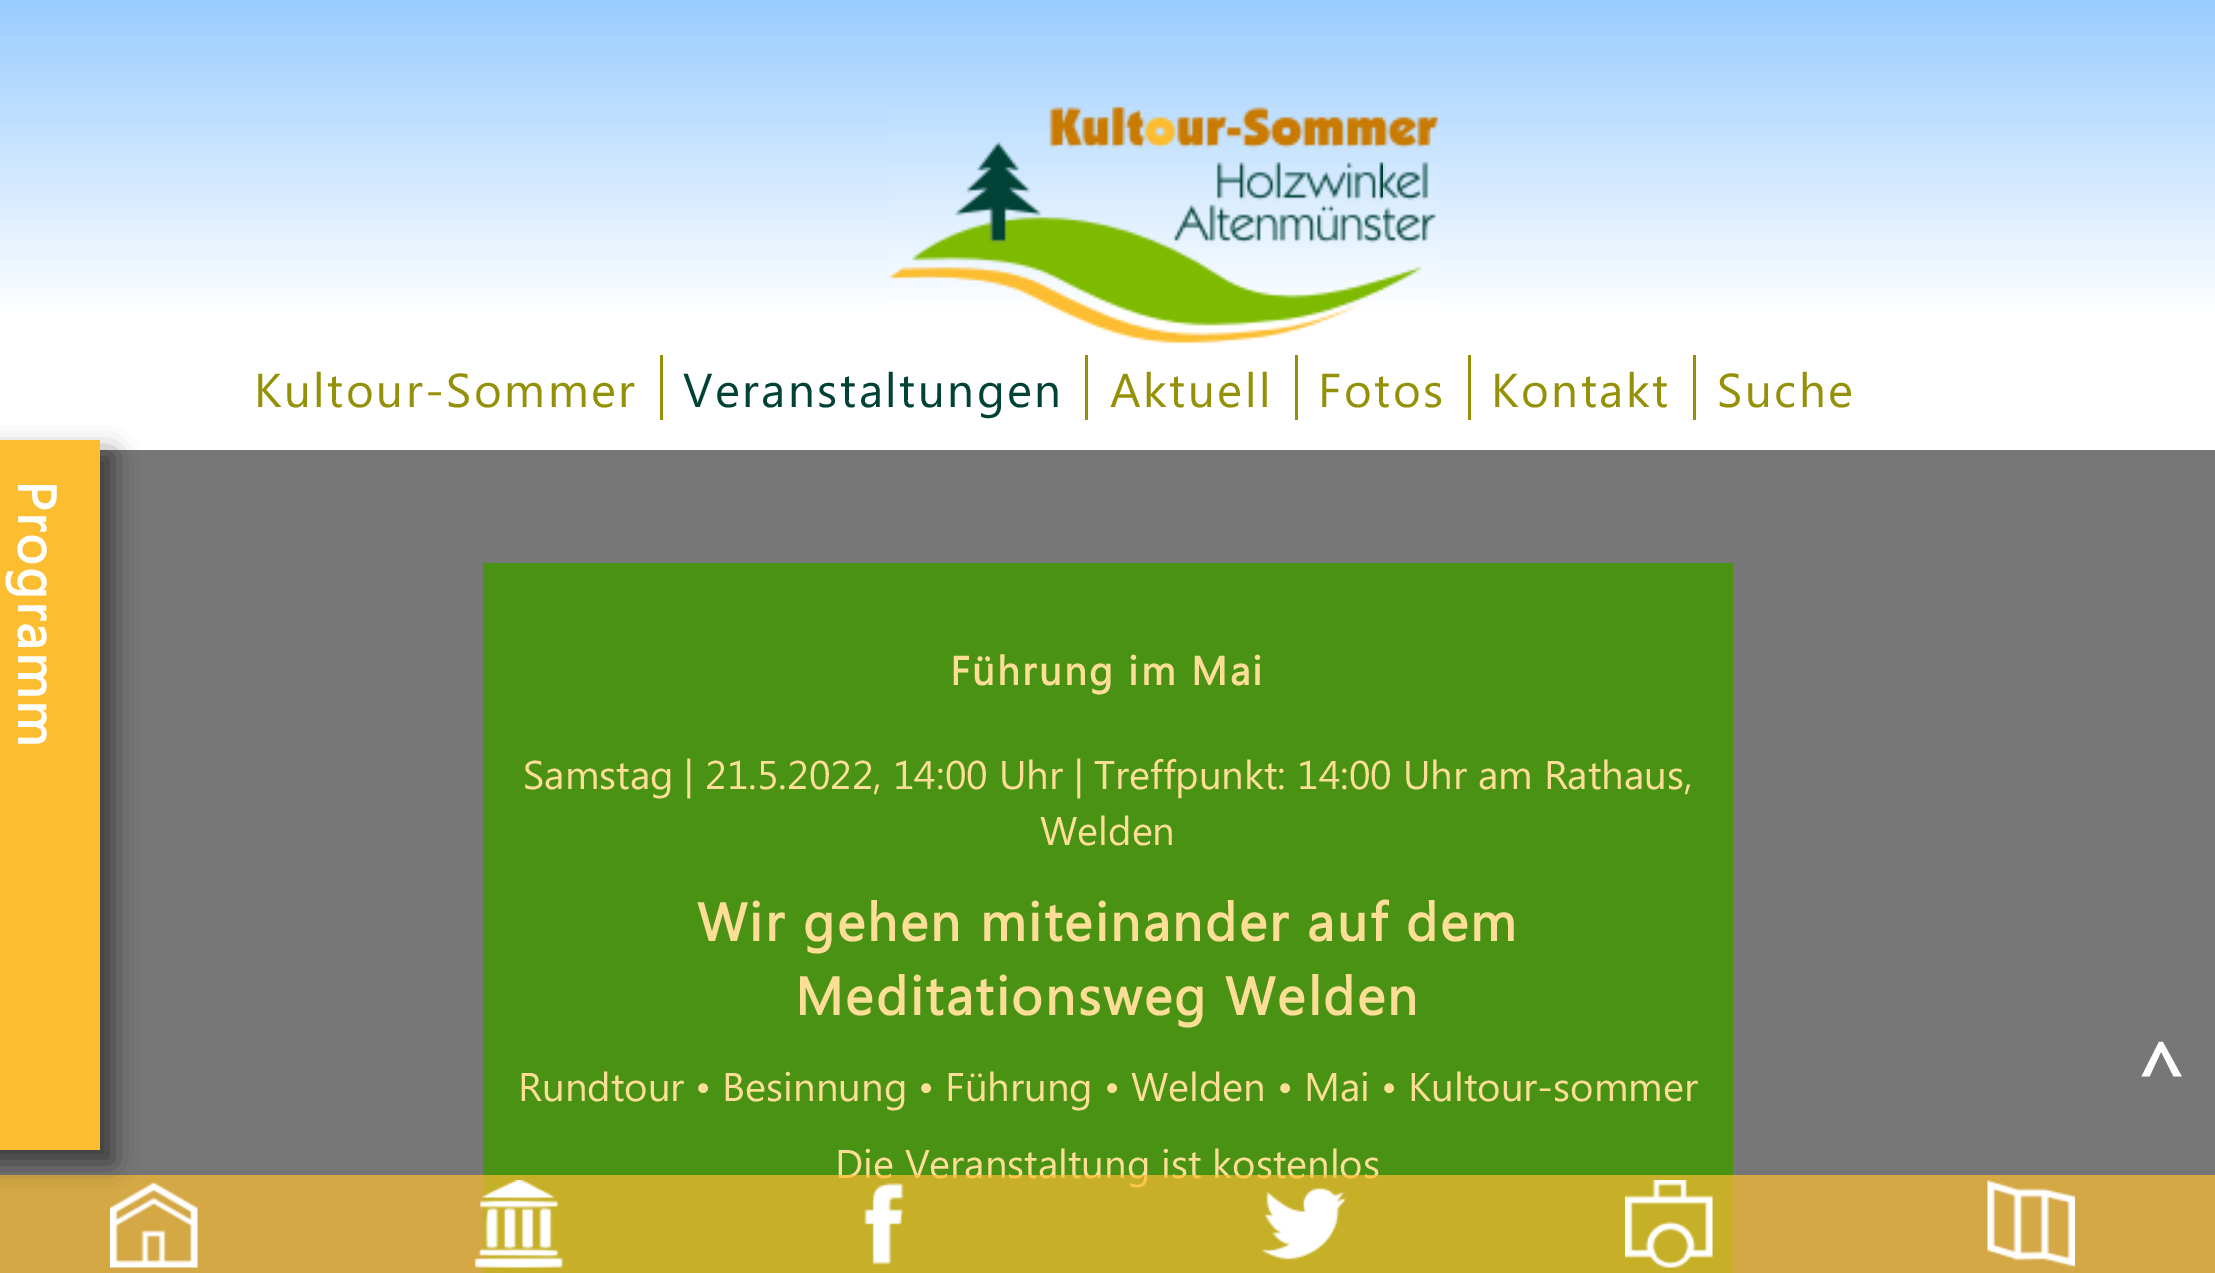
%!PS-Adobe-3.0
%%BoundingBox: 0 0 2215 1273
%%LanguageLevel: 3
%%Pages: 1
%%EndComments
%%BeginProlog
/setalpha { dup .setfillconstantalpha .setstrokeconstantalpha } def
/rrect { 5 dict begin { /r /h /w /y /x } { exch def } forall
  x r add y moveto x w add y 2 copy h add r arct x w add y h add x 1 index r arct
  x y h add x y r arct x y 2 copy exch w add exch r arct closepath end } def
/softshadow { 12 dict begin { /a /b /q /h /w /y /x } { exch def } forall gsave /was 0 def
  9 -2 -9 { dup b mul 4 div /e exch def 1 sub .425 mul 2.718 exch exp 1 add a .99 .min exch div /now exch def
    1 1 now sub 1 was sub div sub setalpha /was now def
    w h .min e 2 mul add 0 gt { x e sub y e sub w e 2 mul add h e 2 mul add
      q e add b .6 mul add w h .min 2 div e add .min 0 .max rrect fill } if } for grestore end } def
/drawimage { 5 dict begin { /h /w /y /x /name } { exch def } forall
  gsave x y translate w h scale
  w h 8 [w 0 0 h 0 0] name (r) file false 3 colorimage grestore end } def
%%EndProlog
%%BeginSetup
<< /PageSize [2215 1273] /PageUsesTransparency true >> setpagedevice
%%EndSetup
%%Page: 1 1
0 .pushpdf14devicefilter
0 1273 translate 1 -1 scale
4 setmiterlimit
0.467 setgray
0 0 2215 1273 rectfill
gsave newpath 0 0 moveto 2215 0 lineto 2215 450 lineto 0 450 lineto closepath clip newpath
<< /ShadingType 2 /ColorSpace /DeviceRGB /Coords [1108 0 1108 450] /Extend [true true] /Function << /FunctionType 3 /Domain [0 1] /Functions [<< /FunctionType 2 /Domain [0 1] /C0 [0.6 0.8 1] /C1 [1 1 1] /N 1 >> << /FunctionType 2 /Domain [0 1] /C0 [1 1 1] /C1 [1 1 1] /N 1 >>] /Bounds [0.7] /Encode [0 1 0 1] >> >> shfill grestore
(images/1.raw) 889 106 550 238 drawimage
0.58 0.569 0.031 setrgbcolor
660 355 3 65 rectfill
1085 355 3 65 rectfill
1295 355 3 65 rectfill
1468 355 3 65 rectfill
1693 355 3 65 rectfill
0.286 0.573 0.075 setrgbcolor
483 563 1250 710 rectfill
/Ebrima-Regular [47.5 0 0 -47.5 0 0] selectfont
0.58 0.569 0.031 setrgbcolor
254 407 moveto 2.5 0 (Kultour-Sommer) ashow
0 0.259 0.212 setrgbcolor
683 407 moveto 2.5 0 (Veranstaltungen) ashow
0.58 0.569 0.031 setrgbcolor
1110 407 moveto 2.5 0 (Aktuell) ashow
1318 407 moveto 2.5 0 (Fotos) ashow
1491 407 moveto 2.5 0 (Kontakt) ashow
1717 407 moveto 2.5 0 (Suche) ashow
/Ebrima-Bold [40 0 0 -40 0 0] selectfont
0.992 0.871 0.592 setrgbcolor
950 685 moveto 2.5 0 (Führung im Mai) ashow
/Ebrima-Regular [40 0 0 -40 0 0] selectfont
523 789 moveto (Samstag | 21.5.2022, 14:00 Uhr | Treffpunkt: 14:00 Uhr am Rathaus,) show
1040 845 moveto (Welden) show
/Ebrima-Bold [53.3 0 0 -53.3 0 0] selectfont
697 941 moveto 2.5 0 (Wir gehen miteinander auf dem) ashow
795 1015 moveto 2.5 0 (Meditationsweg Welden) ashow
/Ebrima-Regular [40 0 0 -40 0 0] selectfont
518 1101 moveto (Rundtour • Besinnung • Führung • Welden • Mai • Kultour-sommer) show
835 1178 moveto (Die Veranstaltung ist kostenlos) show
/Ebrima-Bold [80 0 0 -80 0 0] selectfont
1 setgray
2133 1101 moveto 2.5 0 (^) ashow
0.7 setalpha
0.988 0.741 0.188 setrgbcolor
0 1175 2215 98 rectfill
1 setalpha
(images/2.raw) 110 1181 88 87 drawimage
0 setgray
-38 453 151 710 0 12.5 0.5 softshadow
0.988 0.741 0.188 setrgbcolor
0 440 100 710 rectfill
/Ebrima-Bold [53.3 0 0 -53.3 0 0] selectfont
1 setgray
gsave 18 480 translate 90 rotate 0 0 moveto 2.5 0 (Programm) ashow grestore
(images/3.raw) 475 1180 88 88 drawimage
(images/4.raw) 864 1183 40 82 drawimage
(images/5.raw) 1261 1188 86 72 drawimage
(images/6.raw) 1625 1180 88 88 drawimage
(images/7.raw) 1987 1180 88 88 drawimage
.poppdf14devicefilter showpage
%%EOF
